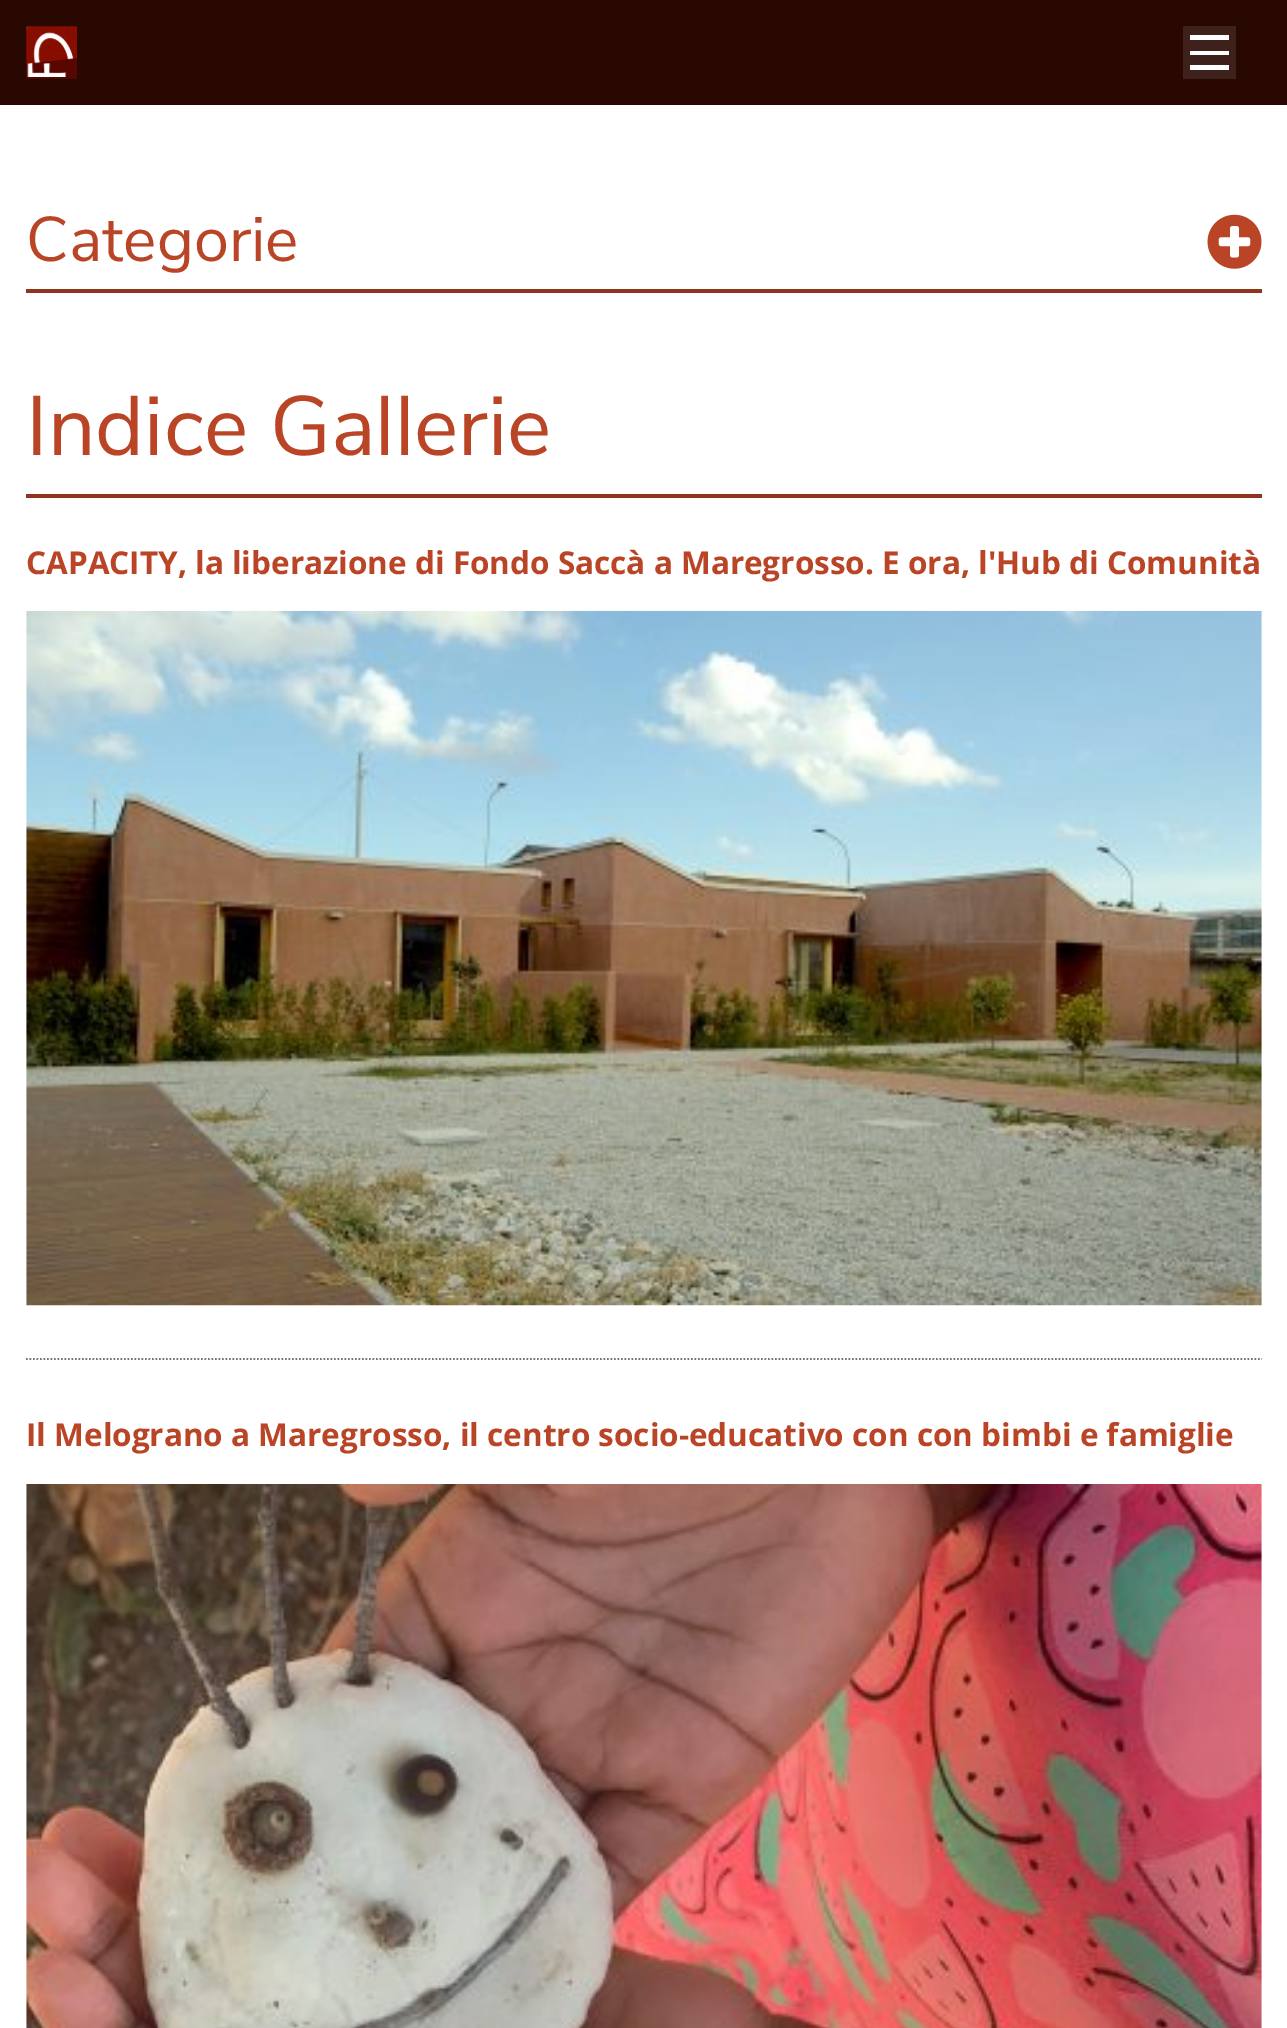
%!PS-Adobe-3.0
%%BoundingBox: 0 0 1287 2028
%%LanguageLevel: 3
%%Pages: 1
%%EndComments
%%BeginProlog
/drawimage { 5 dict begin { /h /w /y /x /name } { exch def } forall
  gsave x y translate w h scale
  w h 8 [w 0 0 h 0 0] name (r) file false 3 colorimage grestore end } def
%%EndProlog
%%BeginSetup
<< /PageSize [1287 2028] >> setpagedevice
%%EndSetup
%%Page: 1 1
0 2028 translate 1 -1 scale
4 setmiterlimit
1 setgray
0 0 1287 2028 rectfill
0.157 0.031 0 setrgbcolor
0 0 1287 105 rectfill
(images/1.raw) 26 26 51 53 drawimage
0.243 0.129 0.102 setrgbcolor
1183 26 53 53 rectfill
1 setgray
1190 35 39 5 rectfill
1190 51 39 4 rectfill
1190 65 39 5 rectfill
0.561 0.204 0.114 setrgbcolor
26 289 1236 4 rectfill
(images/2.raw) 1207 214 55 55 drawimage
26 494 1236 4 rectfill
0.431 0.471 0.475 setrgbcolor
1.8 setlinewidth
[1.75 1.75] 0 setdash
newpath 26 1359 moveto 1262 1359 lineto stroke
(images/3.raw) 26 610 1236 696 drawimage
(images/4.raw) 26 1484 1236 544 drawimage
/NunitoSans-Regular [63 0 0 -63 0 0] selectfont
0.725 0.267 0.149 setrgbcolor
26 261 moveto (Categorie) show
/NunitoSans-Regular [84 0 0 -84 0 0] selectfont
26 455 moveto (Indice Gallerie) show
/OpenSans-Bold [31.5 0 0 -31.5 0 0] selectfont
26 574 moveto (CAPACITY, la liberazione di Fondo Saccà a Maregrosso. E ora, l'Hub di Comunità) show
26 1446 moveto (Il Melograno a Maregrosso, il centro socio-educativo con con bimbi e famiglie) show
showpage
%%EOF
